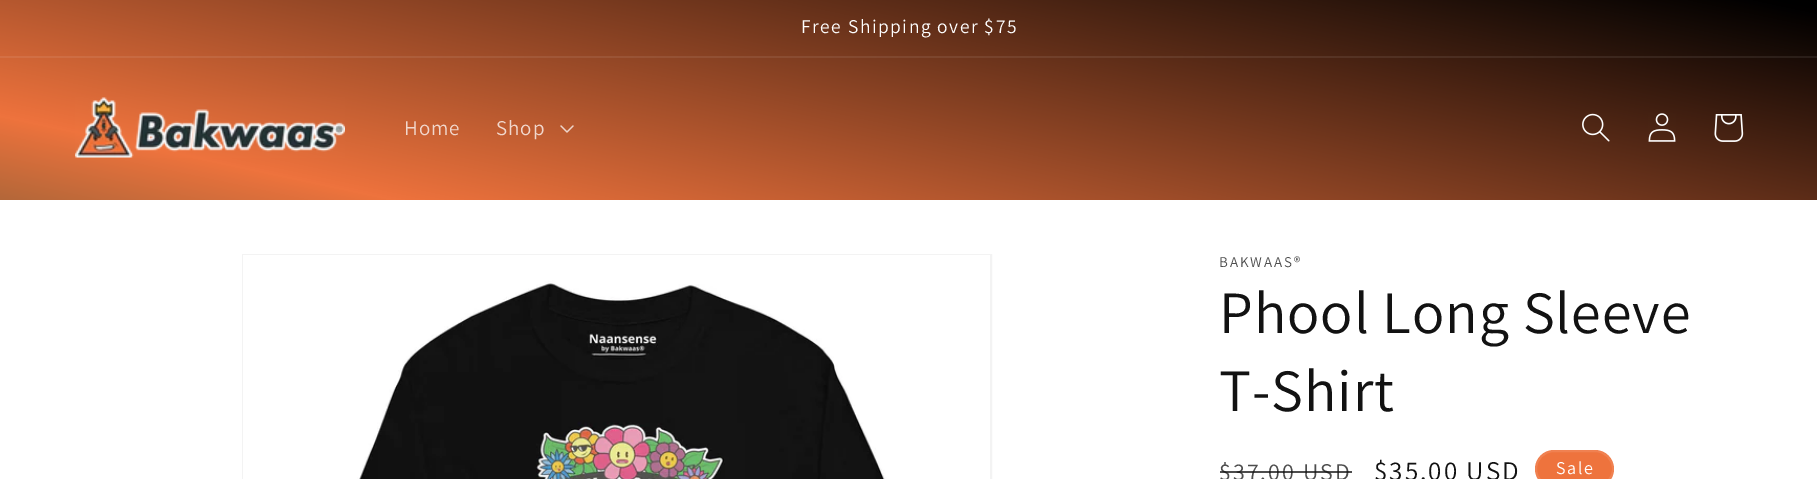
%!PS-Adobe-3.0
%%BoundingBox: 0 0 1817 479
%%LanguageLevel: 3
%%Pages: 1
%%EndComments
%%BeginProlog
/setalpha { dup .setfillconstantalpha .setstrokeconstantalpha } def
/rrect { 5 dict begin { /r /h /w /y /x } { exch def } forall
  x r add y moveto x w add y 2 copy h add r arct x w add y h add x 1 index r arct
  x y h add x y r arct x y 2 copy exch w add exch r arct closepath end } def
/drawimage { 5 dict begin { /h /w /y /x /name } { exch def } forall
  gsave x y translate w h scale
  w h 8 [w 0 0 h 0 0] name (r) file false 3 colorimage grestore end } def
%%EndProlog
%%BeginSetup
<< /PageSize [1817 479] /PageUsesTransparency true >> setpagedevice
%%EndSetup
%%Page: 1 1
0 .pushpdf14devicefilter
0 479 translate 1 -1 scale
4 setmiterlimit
1 setgray
0 0 1817 479 rectfill
gsave newpath 0 0 moveto 1817 0 lineto 1817 56 lineto 0 56 lineto closepath clip newpath
<< /ShadingType 2 /ColorSpace /DeviceRGB /Coords [997 -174 821 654] /Extend [true true] /Function << /FunctionType 3 /Domain [0 1] /Functions [<< /FunctionType 2 /Domain [0 1] /C0 [0 0 0] /C1 [0 0 0] /N 1 >> << /FunctionType 2 /Domain [0 1] /C0 [0 0 0] /C1 [0.933 0.451 0.239] /N 1 >> << /FunctionType 2 /Domain [0 1] /C0 [0.933 0.451 0.239] /C1 [0 0.255 0.176] /N 1 >> << /FunctionType 2 /Domain [0 1] /C0 [0 0.255 0.176] /C1 [0 0.255 0.176] /N 1 >>] /Bounds [0.01 0.58 0.97] /Encode [0 1 0 1 0 1 0 1] >> >> shfill grestore
gsave newpath 0 56 moveto 1817 56 lineto 1817 57 lineto 0 57 lineto closepath clip newpath
<< /ShadingType 2 /ColorSpace /DeviceRGB /Coords [997 -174 821 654] /Extend [true true] /Function << /FunctionType 3 /Domain [0 1] /Functions [<< /FunctionType 2 /Domain [0 1] /C0 [0.078 0.078 0.078] /C1 [0.078 0.078 0.078] /N 1 >> << /FunctionType 2 /Domain [0 1] /C0 [0.078 0.078 0.078] /C1 [0.937 0.494 0.302] /N 1 >> << /FunctionType 2 /Domain [0 1] /C0 [0.937 0.494 0.302] /C1 [0.078 0.314 0.243] /N 1 >> << /FunctionType 2 /Domain [0 1] /C0 [0.078 0.314 0.243] /C1 [0.078 0.314 0.243] /N 1 >>] /Bounds [0.01 0.58 0.97] /Encode [0 1 0 1 0 1 0 1] >> >> shfill grestore
gsave newpath 0 58 moveto 1817 58 lineto 1817 200 lineto 0 200 lineto closepath clip newpath
<< /ShadingType 2 /ColorSpace /DeviceRGB /Coords [997 -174 821 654] /Extend [true true] /Function << /FunctionType 3 /Domain [0 1] /Functions [<< /FunctionType 2 /Domain [0 1] /C0 [0 0 0] /C1 [0 0 0] /N 1 >> << /FunctionType 2 /Domain [0 1] /C0 [0 0 0] /C1 [0.933 0.451 0.239] /N 1 >> << /FunctionType 2 /Domain [0 1] /C0 [0.933 0.451 0.239] /C1 [0 0.255 0.176] /N 1 >> << /FunctionType 2 /Domain [0 1] /C0 [0 0.255 0.176] /C1 [0 0.255 0.176] /N 1 >>] /Bounds [0.01 0.58 0.97] /Encode [0 1 0 1 0 1 0 1] >> >> shfill grestore
gsave newpath 0 57 moveto 1817 57 lineto 1817 58 lineto 0 58 lineto closepath clip newpath
<< /ShadingType 2 /ColorSpace /DeviceRGB /Coords [997 -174 821 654] /Extend [true true] /Function << /FunctionType 3 /Domain [0 1] /Functions [<< /FunctionType 2 /Domain [0 1] /C0 [0.078 0.078 0.078] /C1 [0.078 0.078 0.078] /N 1 >> << /FunctionType 2 /Domain [0 1] /C0 [0.078 0.078 0.078] /C1 [0.937 0.494 0.302] /N 1 >> << /FunctionType 2 /Domain [0 1] /C0 [0.937 0.494 0.302] /C1 [0.078 0.314 0.243] /N 1 >> << /FunctionType 2 /Domain [0 1] /C0 [0.078 0.314 0.243] /C1 [0.078 0.314 0.243] /N 1 >>] /Bounds [0.01 0.58 0.97] /Encode [0 1 0 1 0 1 0 1] >> >> shfill grestore
(images/1.raw) 75 97 270 61 drawimage
(images/2.raw) 560 125 14 8 drawimage
(images/3.raw) 1582 113 28 29 drawimage
(images/4.raw) 1648 113 28 29 drawimage
(images/5.raw) 1714 114 30 28 drawimage
0.953 setgray
2 setlinewidth
243 255 748 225 rectstroke
(images/6.raw) 243 255 747 224 drawimage
0.933 0.451 0.239 setrgbcolor
1535 450 79 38 19 rrect fill
0.1 setalpha
1 setgray
1536 451 77 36 18 rrect stroke
/Assistant-Regular [19.5 0 0 -19.5 0 0] selectfont
1 setalpha
801 33 moveto 1.5 0 (Free Shipping over $75) ashow
/Assistant-Regular [21 0 0 -21 0 0] selectfont
0.945 0.843 0.8 setrgbcolor
404 135 moveto 0.9 0 (Home) ashow
496 135 moveto 0.9 0 (Shop) ashow
/Assistant-Regular [15 0 0 -15 0 0] selectfont
0.302 setgray
1219 267 moveto 2 0 (BAKWAAS®) ashow
/Assistant-Regular [60 0 0 -60 0 0] selectfont
0.071 setgray
1219 333 moveto 0.9 0 (Phool Long Sleeve) ashow
1219 411 moveto 0.9 0 (T-Shirt) ashow
/Assistant-Regular [24 0 0 -24 0 0] selectfont
0.302 setgray
1219 480 moveto 2 0 ($37.00 USD) ashow
0.75 setalpha
0.071 setgray
1220 471 132 2 rectfill
/Assistant-Regular [27 0 0 -27 0 0] selectfont
1 setalpha
1374 480 moveto 2 0 ($35.00 USD) ashow
/Assistant-Regular [18 0 0 -18 0 0] selectfont
1 setgray
1556 474 moveto 1.5 0 (Sale) ashow
.poppdf14devicefilter showpage
%%EOF
